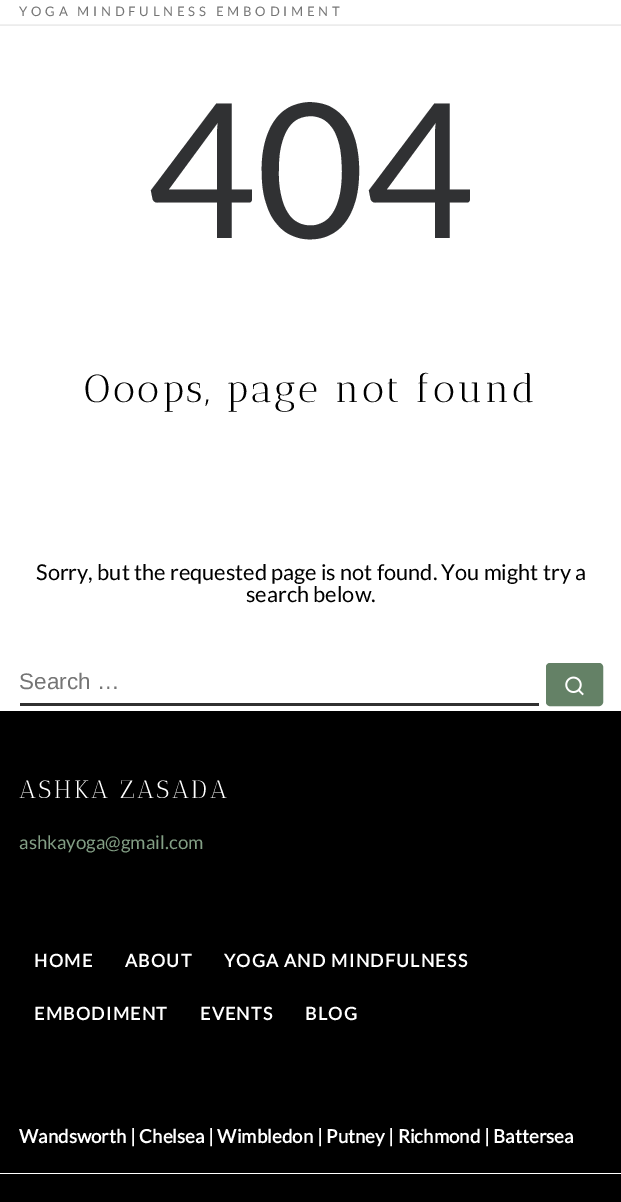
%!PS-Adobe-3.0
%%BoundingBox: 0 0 621 1202
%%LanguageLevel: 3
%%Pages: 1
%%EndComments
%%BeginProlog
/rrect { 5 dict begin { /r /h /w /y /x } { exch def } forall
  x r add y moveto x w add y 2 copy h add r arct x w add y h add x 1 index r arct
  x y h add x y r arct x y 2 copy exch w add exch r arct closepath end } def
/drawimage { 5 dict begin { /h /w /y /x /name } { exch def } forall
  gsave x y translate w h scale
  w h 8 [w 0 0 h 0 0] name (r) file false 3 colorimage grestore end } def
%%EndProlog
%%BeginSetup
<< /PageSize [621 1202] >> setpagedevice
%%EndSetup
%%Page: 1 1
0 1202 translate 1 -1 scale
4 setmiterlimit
1 setgray
0 0 621 1202 rectfill
0.925 setgray
0 25 621 1 rectfill
0.941 setgray
0 24 621 1 rectfill
0.192 setgray
20 703 519 3 rectfill
0.392 0.506 0.4 setrgbcolor
547.5 664.5 54 40 2.5 rrect gsave fill grestore
3 setlinewidth
stroke
(images/1.raw) 565 676 19 20 drawimage
0 setgray
0 711 621 491 rectfill
1 setgray
0 1173 621 1 rectfill
/Lato-Regular [13.1 0 0 -13.1 0 0] selectfont
0.459 setgray
19 16 moveto 3.75 0 (YOGA MINDFULNESS EMBODIMENT) ashow
/Lato-Regular [188 0 0 -188 0 0] selectfont
0.188 0.192 0.2 setrgbcolor
147 238 moveto (404) show
/AnticDidone-Regular [38.9 0 0 -38.9 0 0] selectfont
0 setgray
84 402 moveto 2.5 0 (Ooops, page not found) ashow
/Lato-Regular [21.8 0 0 -21.8 0 0] selectfont
36 580 moveto (Sorry, but the requested page is not found. You might try a) show
246 602 moveto (search below.) show
/LiberationSans-Regular [22.5 0 0 -22.5 0 0] selectfont
0.459 setgray
19 689 moveto (Search …) show
/AnticDidone-Regular [25 0 0 -25 0 0] selectfont
1 setgray
19 798 moveto 2.5 0 (ASHKA ZASADA) ashow
/Lato-Regular [18.75 0 0 -18.75 0 0] selectfont
0.514 0.624 0.522 setrgbcolor
19 849 moveto (ashkayoga@gmail.com) show
/Lato-Bold [17.75 0 0 -17.75 0 0] selectfont
1 setgray
34 967 moveto 1.25 0 (HOME) ashow
125 967 moveto 1.25 0 (ABOUT) ashow
224 967 moveto 1.25 0 (YOGA AND MINDFULNESS) ashow
34 1020 moveto 1.25 0 (EMBODIMENT) ashow
200 1020 moveto 1.25 0 (EVENTS) ashow
305 1020 moveto 1.25 0 (BLOG) ashow
/Lato-Bold [18.75 0 0 -18.75 0 0] selectfont
19 1143 moveto (Wandsworth | Chelsea | Wimbledon | Putney | Richmond | Battersea) show
showpage
%%EOF
